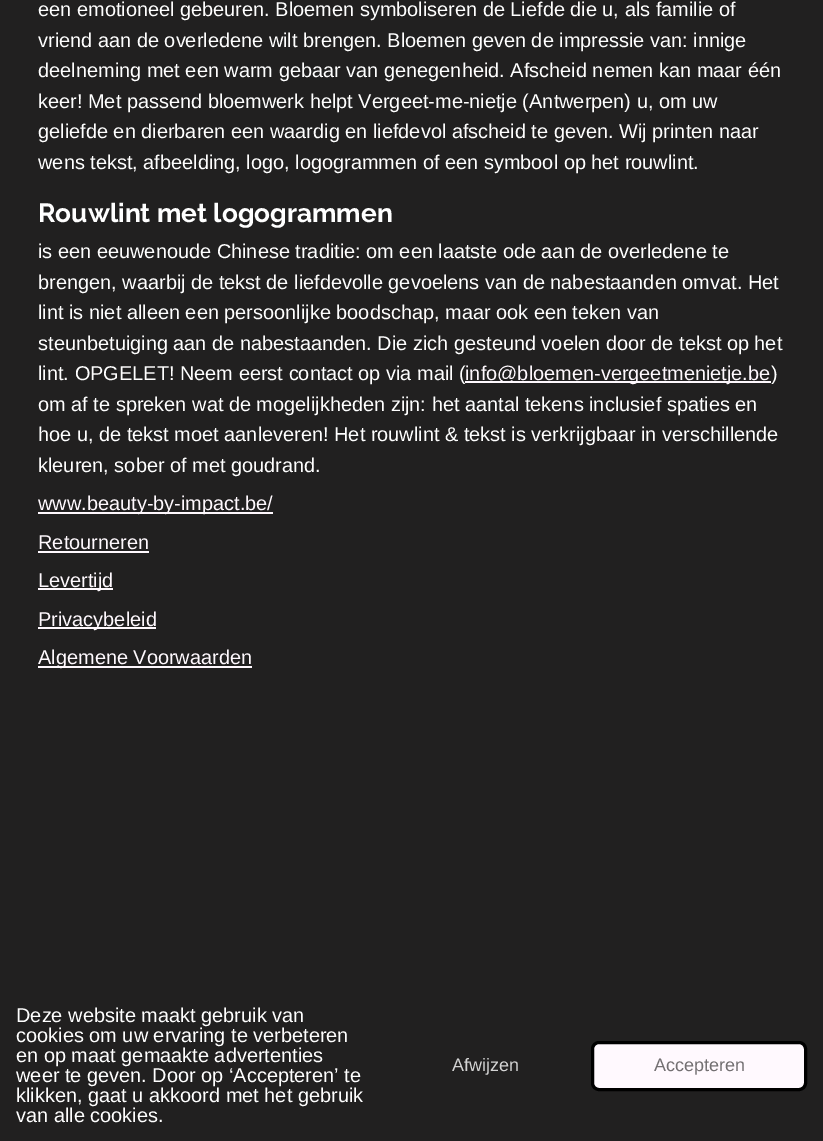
%!PS-Adobe-3.0
%%BoundingBox: 0 0 823 1141
%%LanguageLevel: 3
%%Pages: 1
%%EndComments
%%BeginProlog
/rrect { 5 dict begin { /r /h /w /y /x } { exch def } forall
  x r add y moveto x w add y 2 copy h add r arct x w add y h add x 1 index r arct
  x y h add x y r arct x y 2 copy exch w add exch r arct closepath end } def
%%EndProlog
%%BeginSetup
<< /PageSize [823 1141] >> setpagedevice
%%EndSetup
%%Page: 1 1
0 1141 translate 1 -1 scale
4 setmiterlimit
0.129 0.125 0.125 setrgbcolor
0 0 823 1141 rectfill
1 0.976 0.996 setrgbcolor
38 512 235 2 rectfill
38 551 111 2 rectfill
38 588 75 2 rectfill
38 627 118 2 rectfill
38 666 214 2 rectfill
592.5 1042.5 213 47 6.5 rrect gsave fill grestore
0 setgray
3 setlinewidth
stroke
/LiberationSans-Regular [19.95 0 0 -19.95 0 0] selectfont
1 setgray
38 16 moveto (een emotioneel gebeuren. Bloemen symboliseren de Liefde die u, als familie of) show
38 47 moveto (vriend aan de overledene wilt brengen. Bloemen geven de impressie van: innige) show
38 77 moveto (deelneming met een warm gebaar van genegenheid. Afscheid nemen kan maar één) show
38 108 moveto (keer! Met passend bloemwerk helpt Vergeet-me-nietje \(Antwerpen\) u, om uw) show
38 138 moveto (geliefde en dierbaren een waardig en liefdevol afscheid te geven. Wij printen naar) show
38 169 moveto (wens tekst, afbeelding, logo, logogrammen of een symbool op het rouwlint.) show
/Raleway-Bold [26.25 0 0 -26.25 0 0] selectfont
38 222 moveto (Rouwlint met logogrammen) show
/LiberationSans-Regular [19.95 0 0 -19.95 0 0] selectfont
38 258 moveto (is een eeuwenoude Chinese traditie: om een laatste ode aan de overledene te) show
38 289 moveto (brengen, waarbij de tekst de liefdevolle gevoelens van de nabestaanden omvat. Het) show
38 319 moveto (lint is niet alleen een persoonlijke boodschap, maar ook een teken van) show
38 350 moveto (steunbetuiging aan de nabestaanden. Die zich gesteund voelen door de tekst op het) show
38 380 moveto (lint. OPGELET! Neem eerst contact op via mail \() show
1 0.976 0.996 setrgbcolor
465 381 306 2 rectfill
465 380 moveto (info@bloemen-vergeetmenietje.be) show
1 setgray
771 380 moveto (\)) show
38 411 moveto (om af te spreken wat de mogelijkheden zijn: het aantal tekens inclusief spaties en) show
38 441 moveto (hoe u, de tekst moet aanleveren! Het rouwlint & tekst is verkrijgbaar in verschillende) show
38 472 moveto (kleuren, sober of met goudrand.) show
1 0.976 0.996 setrgbcolor
38 510 moveto (www.beauty-by-impact.be/) show
38 549 moveto (Retourneren) show
38 587 moveto (Levertijd) show
38 626 moveto (Privacybeleid) show
38 664 moveto (Algemene Voorwaarden) show
1 setgray
16 1022 moveto (Deze website maakt gebruik van) show
16 1042 moveto (cookies om uw ervaring te verbeteren) show
16 1062 moveto (en op maat gemaakte advertenties) show
16 1082 moveto (weer te geven. Door op ‘Accepteren’ te) show
16 1102 moveto (klikken, gaat u akkoord met het gebruik) show
16 1122 moveto (van alle cookies.) show
/LiberationSans-Regular [18 0 0 -18 0 0] selectfont
0.827 setgray
452 1071 moveto (Afwijzen) show
0.451 0.439 0.447 setrgbcolor
654 1071 moveto (Accepteren) show
showpage
%%EOF
